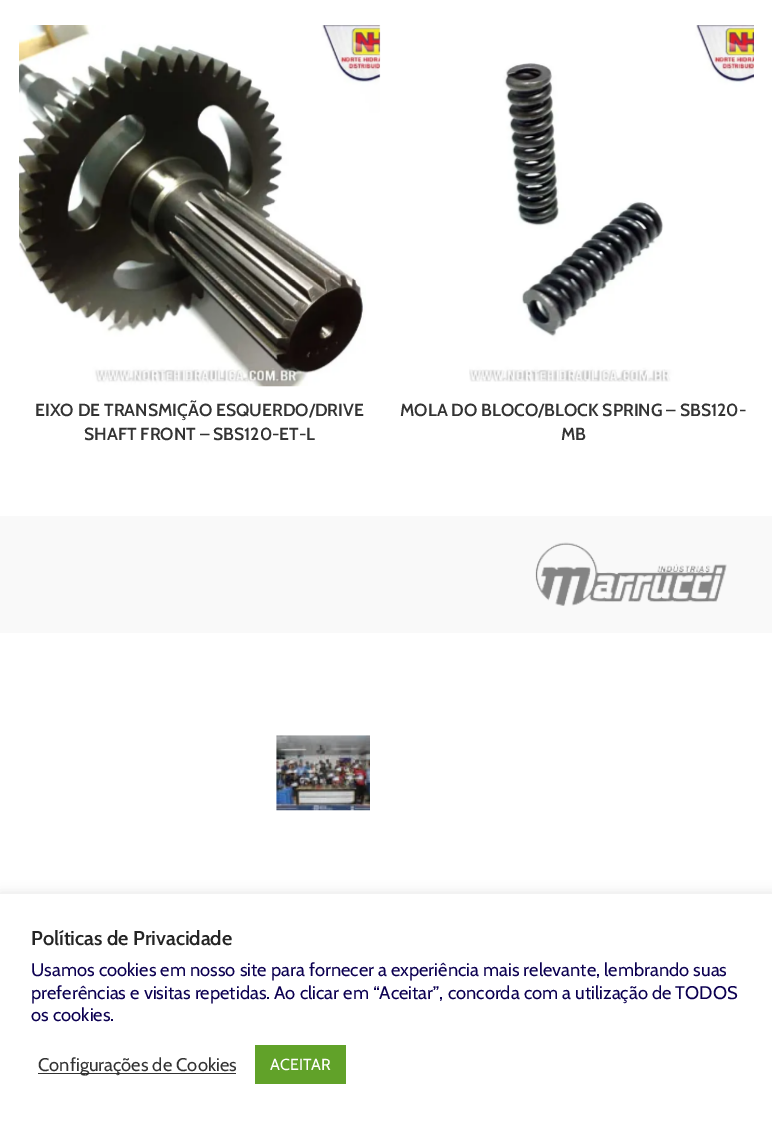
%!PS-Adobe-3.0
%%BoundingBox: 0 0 772 1121
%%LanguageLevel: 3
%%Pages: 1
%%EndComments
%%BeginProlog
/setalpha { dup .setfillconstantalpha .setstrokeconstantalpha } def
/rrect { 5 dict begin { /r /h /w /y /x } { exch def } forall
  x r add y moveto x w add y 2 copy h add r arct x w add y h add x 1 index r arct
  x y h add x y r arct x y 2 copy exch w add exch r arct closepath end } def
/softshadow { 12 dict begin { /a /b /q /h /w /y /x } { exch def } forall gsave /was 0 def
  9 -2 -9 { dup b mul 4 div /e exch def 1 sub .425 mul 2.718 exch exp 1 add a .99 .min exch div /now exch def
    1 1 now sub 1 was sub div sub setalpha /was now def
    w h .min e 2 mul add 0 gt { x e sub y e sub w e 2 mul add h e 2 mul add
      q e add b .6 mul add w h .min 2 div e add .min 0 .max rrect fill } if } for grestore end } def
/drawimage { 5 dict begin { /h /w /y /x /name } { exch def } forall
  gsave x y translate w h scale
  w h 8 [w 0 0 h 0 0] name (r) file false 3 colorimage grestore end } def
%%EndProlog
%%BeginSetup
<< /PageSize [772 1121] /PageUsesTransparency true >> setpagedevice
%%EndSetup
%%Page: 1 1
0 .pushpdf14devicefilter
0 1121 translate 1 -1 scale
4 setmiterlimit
1 setgray
0 0 772 1121 rectfill
(images/1.raw) 19 25 362 362 drawimage
(images/2.raw) 469 25 285 357 drawimage
0.976 setgray
0 516 772 117 rectfill
(images/3.raw) 535 542 192 64 drawimage
(images/4.raw) 276 735 94 76 drawimage
0.675 0.671 0.671 setrgbcolor
0 893 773 227 0 6 0.3 softshadow
1 setgray
0 894 772 227 rectfill
0.2 setgray
38 1073 198 1 rectfill
0.38 0.635 0.161 setrgbcolor
255 1045 91 39 rectfill
/Cabin-SemiBold [17.5 0 0 -17.5 0 0] selectfont
0.2 setgray
35 416 moveto (EIXO DE TRANSMIÇÃO ESQUERDO/DRIVE) show
84 440 moveto (SHAFT FRONT – SBS120-ET-L) show
400 416 moveto (MOLA DO BLOCO/BLOCK SPRING – SBS120-) show
561 440 moveto (MB) show
/Cabin-SemiBold [20 0 0 -20 0 0] selectfont
0.141 setgray
31 945 moveto (Políticas de Privacidade) show
/Cabin-Regular [18.35 0 0 -18.35 0 0] selectfont
0.047 0 0.318 setrgbcolor
31 976 moveto (Usamos cookies em nosso site para fornecer a experiência mais relevante, lembrando suas) show
31 999 moveto (preferências e visitas repetidas. Ao clicar em “Aceitar”, concorda com a utilização de TODOS) show
31 1021 moveto (os cookies.) show
0.2 setgray
38 1071 moveto (Configurações de Cookies) show
/Cabin-Regular [16 0 0 -16 0 0] selectfont
1 setgray
270 1070 moveto (ACEITAR) show
.poppdf14devicefilter showpage
%%EOF
